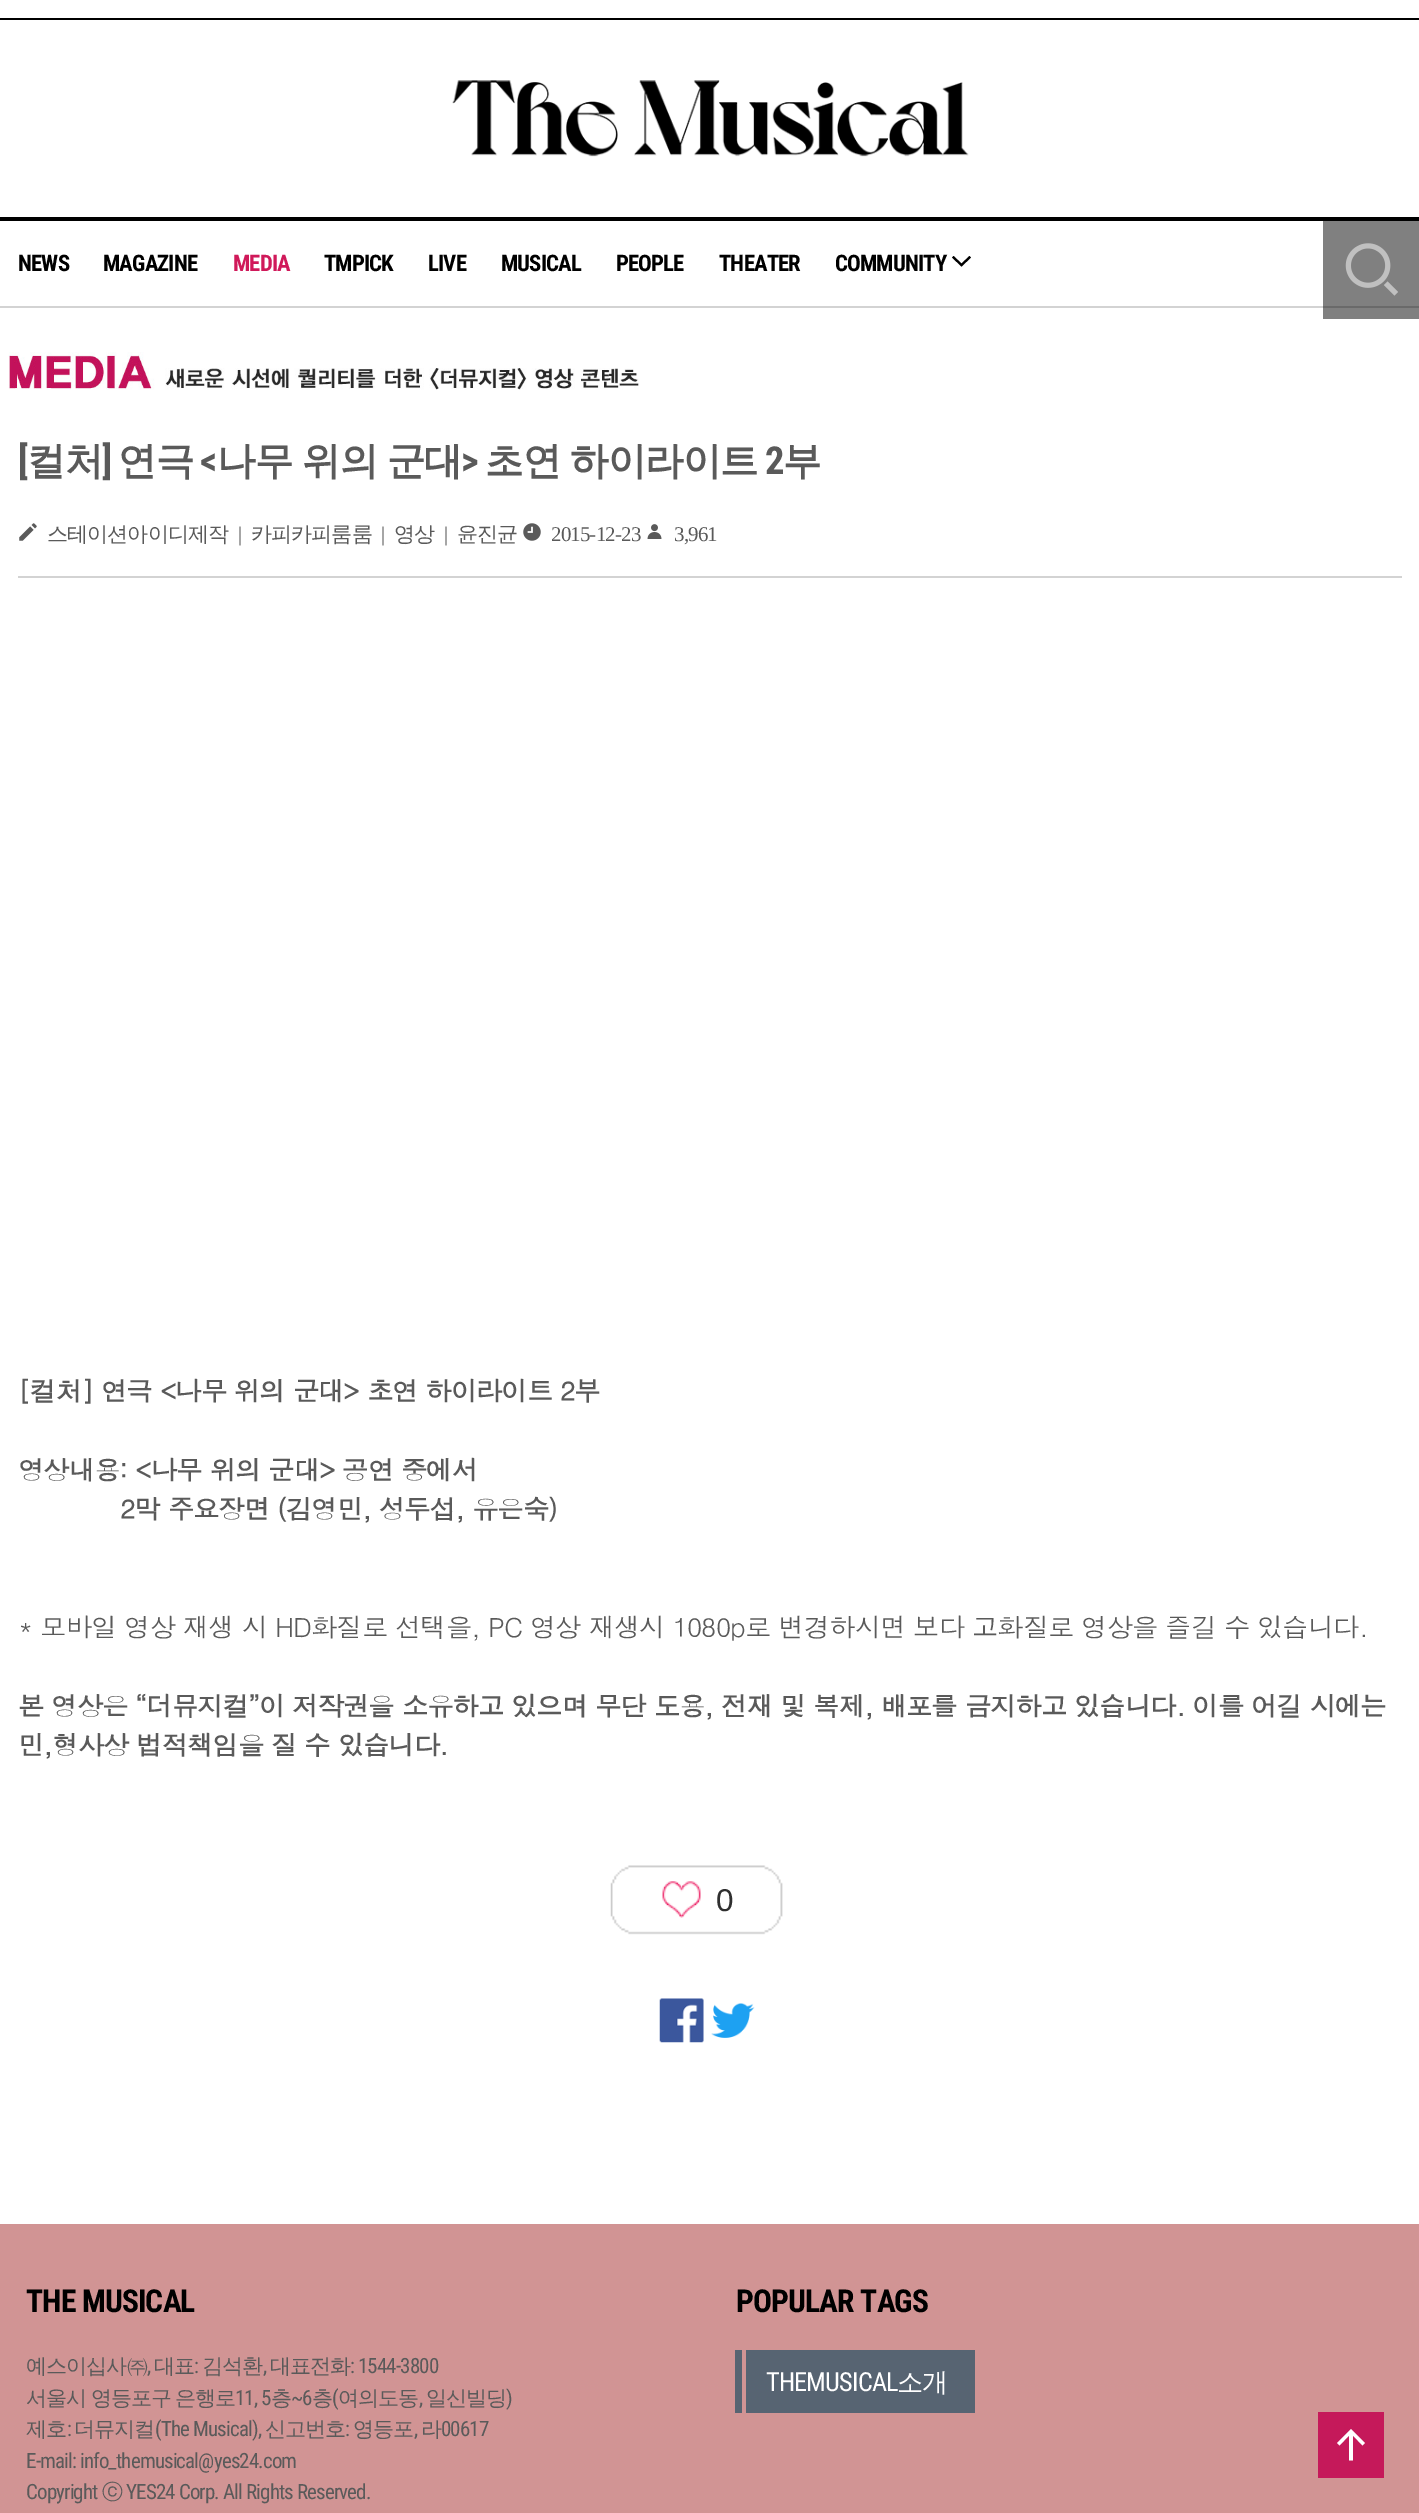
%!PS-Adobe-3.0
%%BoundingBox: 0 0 1419 2513
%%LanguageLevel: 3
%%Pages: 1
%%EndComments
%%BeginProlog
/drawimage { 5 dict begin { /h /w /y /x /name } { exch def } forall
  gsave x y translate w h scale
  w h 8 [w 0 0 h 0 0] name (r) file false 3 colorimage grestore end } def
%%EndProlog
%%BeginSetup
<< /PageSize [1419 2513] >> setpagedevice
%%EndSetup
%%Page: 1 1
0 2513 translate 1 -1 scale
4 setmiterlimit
1 setgray
0 0 1419 2513 rectfill
0.502 setgray
1323 221 96 98 rectfill
0 setgray
0 18 1419 2 rectfill
(images/1.raw) 452 80 517 77 drawimage
0 217 1419 4 rectfill
0.827 setgray
0 306 1323 2 rectfill
0.416 setgray
1323 306 96 2 rectfill
0 setgray
newpath 953.5 256 moveto 961.5 263.5 lineto 969.5 256 lineto 971 257.5 lineto 961.5 266.5 lineto 952 257.5 lineto closepath fill
(images/2.raw) 1345 243 53 53 drawimage
(images/3.raw) 8 352 631 38 drawimage
(images/4.raw) 19 523 18 18 drawimage
(images/5.raw) 523 523 18 18 drawimage
(images/6.raw) 647 524 15 15 drawimage
0.827 setgray
18 576 1384 2 rectfill
(images/7.raw) 610 1865 173 70 drawimage
(images/8.raw) 662 1881 39 37 drawimage
(images/9.raw) 659 1998 45 45 drawimage
(images/10.raw) 711 2003 44 35 drawimage
0.82 0.58 0.58 setrgbcolor
0 2224 1419 289 rectfill
0.773 0.098 0.353 setrgbcolor
1318 2412 66 66 rectfill
1 setgray
newpath 1353 2460.5 moveto 1353 2435.5 lineto 1362.5 2445.5 lineto 1365 2443 lineto 1351 2429 lineto 1337 2443 lineto 1339.5 2445.5 lineto 1349 2435.5 lineto 1349 2460.5 lineto closepath fill
0.341 0.392 0.447 setrgbcolor
746 2350 229 63 rectfill
735 2350 7 63 rectfill
/RobotoCondensed-Bold [22.75 0 0 -22.75 0 0] selectfont
0 setgray
18 271 moveto -0.88 0 (NEWS) ashow
103 271 moveto -0.88 0 (MAGAZINE) ashow
0.816 0.098 0.353 setrgbcolor
233 271 moveto -0.88 0 (MEDIA) ashow
0 setgray
324 271 moveto -0.88 0 (TMPICK) ashow
428 271 moveto -0.88 0 (LIVE) ashow
501 271 moveto -0.88 0 (MUSICAL) ashow
616 271 moveto -0.88 0 (PEOPLE) ashow
719 271 moveto -0.88 0 (THEATER) ashow
835 271 moveto -0.88 0 (COMMUNITY) ashow
/RobotoCondensed-Bold [38.5 0 0 -38.5 0 0] selectfont
0.353 setgray
18 474 moveto -0.88 0 ([) ashow
/WenQuanYiZenHei-Bold [38.5 0 0 -38.5 0 0] selectfont
27 474 moveto -0.88 0 (컬처) ashow
/RobotoCondensed-Bold [38.5 0 0 -38.5 0 0] selectfont
102 474 moveto -0.88 0 (]) ashow
/WenQuanYiZenHei-Bold [38.5 0 0 -38.5 0 0] selectfont
118 474 moveto -0.88 0 (연극) ashow
/RobotoCondensed-Bold [38.5 0 0 -38.5 0 0] selectfont
200 474 moveto -0.88 0 (<) ashow
/WenQuanYiZenHei-Bold [38.5 0 0 -38.5 0 0] selectfont
217 474 moveto -1 0 32 -0.88 0 (나무 위의 군대) awidthshow
/RobotoCondensed-Bold [38.5 0 0 -38.5 0 0] selectfont
461 474 moveto -0.88 0 (>) ashow
/WenQuanYiZenHei-Bold [38.5 0 0 -38.5 0 0] selectfont
485 474 moveto -1 0 32 -0.88 0 (초연 하이라이트) awidthshow
/RobotoCondensed-Bold [38.5 0 0 -38.5 0 0] selectfont
765 474 moveto -0.88 0 (2) ashow
/WenQuanYiZenHei-Bold [38.5 0 0 -38.5 0 0] selectfont
783 474 moveto -0.88 0 (부) ashow
/WenQuanYiZenHei-Medium [21 0 0 -21 0 0] selectfont
47 541 moveto -0.88 0 (스테이션아이디제작) ashow
/LiberationSerif-Regular [21 0 0 -21 0 0] selectfont
238 541 moveto -0.88 0 (|) ashow
/WenQuanYiZenHei-Medium [21 0 0 -21 0 0] selectfont
251 541 moveto -0.88 0 (카피카피룸룸) ashow
/LiberationSerif-Regular [21 0 0 -21 0 0] selectfont
381 541 moveto -0.88 0 (|) ashow
/WenQuanYiZenHei-Medium [21 0 0 -21 0 0] selectfont
394 541 moveto -0.88 0 (영상) ashow
/LiberationSerif-Regular [21 0 0 -21 0 0] selectfont
444 541 moveto -0.88 0 (|) ashow
/WenQuanYiZenHei-Medium [21 0 0 -21 0 0] selectfont
457 541 moveto -0.88 0 (윤진균) ashow
/LiberationSerif-Regular [21 0 0 -21 0 0] selectfont
551 541 moveto -0.88 0 (2015-12-23) ashow
674 541 moveto -0.88 0 (3,961) ashow
/Dotum-Bold [26.25 0 0 -26.25 0 0] selectfont
18 1401 moveto -0.88 0 ([컬처] 연극 <나무 위의 군대> 초연 하이라이트 2부) ashow
18 1480 moveto -0.88 0 (영상내용: <나무 위의 군대> 공연 중에서) ashow
120 1519 moveto -0.88 0 (2막 주요장면 \(김영민, 성두섭, 유은숙\)) ashow
/Dotum-Regular [26.25 0 0 -26.25 0 0] selectfont
18 1637 moveto -0.88 0 (* 모바일 영상 재생 시 HD화질로 선택을, PC 영상 재생시 1080p로 변경하시면 보다 고화질로 영상을 즐길 수 있습니다.) ashow
/Dotum-Bold [26.25 0 0 -26.25 0 0] selectfont
18 1716 moveto -0.88 0 (본 영상은 “더뮤지컬”이 저작권을 소유하고 있으며 무단 도용, 전재 및 복제, 배포를 금지하고 있습니다. 이를 어길 시에는) ashow
18 1755 moveto -0.88 0 (민,형사상 법적책임을 질 수 있습니다.) ashow
/LiberationSans-Regular [31.5 0 0 -31.5 0 0] selectfont
0.184 setgray
716 1911 moveto -0.88 0 (0) ashow
/RobotoCondensed-Bold [31.5 0 0 -31.5 0 0] selectfont
0 setgray
26 2312 moveto -0.88 0 (THE MUSICAL) ashow
/WenQuanYiZenHei-Medium [21 0 0 -21 0 0] selectfont
0.353 setgray
26 2373 moveto -0.88 0 (예스이십사㈜) ashow
/RobotoCondensed-Regular [21 0 0 -21 0 0] selectfont
147 2373 moveto -0.88 0 (,) ashow
/WenQuanYiZenHei-Medium [21 0 0 -21 0 0] selectfont
154 2373 moveto -0.88 0 (대표) ashow
/RobotoCondensed-Regular [21 0 0 -21 0 0] selectfont
194 2373 moveto -0.88 0 (:) ashow
/WenQuanYiZenHei-Medium [21 0 0 -21 0 0] selectfont
202 2373 moveto -0.88 0 (김석환) ashow
/RobotoCondensed-Regular [21 0 0 -21 0 0] selectfont
263 2373 moveto -0.88 0 (,) ashow
/WenQuanYiZenHei-Medium [21 0 0 -21 0 0] selectfont
270 2373 moveto -0.88 0 (대표전화) ashow
/RobotoCondensed-Regular [21 0 0 -21 0 0] selectfont
350 2373 moveto -0.88 0 (: 1544-3800) ashow
/WenQuanYiZenHei-Medium [21 0 0 -21 0 0] selectfont
26 2405 moveto -0.88 0 (서울시) ashow
91 2405 moveto -0.88 0 (영등포구) ashow
175 2405 moveto -0.88 0 (은행로) ashow
/RobotoCondensed-Regular [21 0 0 -21 0 0] selectfont
235 2405 moveto -0.88 0 (11, 5) ashow
/WenQuanYiZenHei-Medium [21 0 0 -21 0 0] selectfont
271 2405 moveto -0.88 0 (층) ashow
/RobotoCondensed-Regular [21 0 0 -21 0 0] selectfont
291 2405 moveto -0.88 0 (~6) ashow
/WenQuanYiZenHei-Medium [21 0 0 -21 0 0] selectfont
312 2405 moveto -0.88 0 (층) ashow
/RobotoCondensed-Regular [21 0 0 -21 0 0] selectfont
332 2405 moveto -0.88 0 (\() ashow
/WenQuanYiZenHei-Medium [21 0 0 -21 0 0] selectfont
338 2405 moveto -0.88 0 (여의도동) ashow
/RobotoCondensed-Regular [21 0 0 -21 0 0] selectfont
419 2405 moveto -0.88 0 (,) ashow
/WenQuanYiZenHei-Medium [21 0 0 -21 0 0] selectfont
426 2405 moveto -0.88 0 (일신빌딩) ashow
/RobotoCondensed-Regular [21 0 0 -21 0 0] selectfont
506 2405 moveto -0.88 0 (\)) ashow
/WenQuanYiZenHei-Medium [21 0 0 -21 0 0] selectfont
26 2436 moveto -0.88 0 (제호) ashow
/RobotoCondensed-Regular [21 0 0 -21 0 0] selectfont
67 2436 moveto -0.88 0 (:) ashow
/WenQuanYiZenHei-Medium [21 0 0 -21 0 0] selectfont
74 2436 moveto -0.88 0 (더뮤지컬) ashow
/RobotoCondensed-Regular [21 0 0 -21 0 0] selectfont
155 2436 moveto -0.88 0 (\(The Musical\),) ashow
/WenQuanYiZenHei-Medium [21 0 0 -21 0 0] selectfont
265 2436 moveto -0.88 0 (신고번호) ashow
/RobotoCondensed-Regular [21 0 0 -21 0 0] selectfont
345 2436 moveto -0.88 0 (:) ashow
/WenQuanYiZenHei-Medium [21 0 0 -21 0 0] selectfont
353 2436 moveto -0.88 0 (영등포) ashow
/RobotoCondensed-Regular [21 0 0 -21 0 0] selectfont
414 2436 moveto -0.88 0 (,) ashow
/WenQuanYiZenHei-Medium [21 0 0 -21 0 0] selectfont
421 2436 moveto -0.88 0 (라) ashow
/RobotoCondensed-Regular [21 0 0 -21 0 0] selectfont
441 2436 moveto -0.88 0 (00617) ashow
26 2468 moveto -0.88 0 (E-mail: info_themusical@yes24.com) ashow
26 2499 moveto -0.88 0 (Copyright) ashow
/WenQuanYiZenHei-Medium [21 0 0 -21 0 0] selectfont
102 2499 moveto -0.88 0 (ⓒ) ashow
/RobotoCondensed-Regular [21 0 0 -21 0 0] selectfont
126 2499 moveto -0.88 0 (YES24 Corp. All Rights Reserved.) ashow
/RobotoCondensed-Bold [31.5 0 0 -31.5 0 0] selectfont
0 setgray
736 2312 moveto -0.88 0 (POPULAR TAGS) ashow
/RobotoCondensed-Regular [26.25 0 0 -26.25 0 0] selectfont
1 setgray
766 2391 moveto -0.88 0 (THEMUSICAL) ashow
/WenQuanYiZenHei-Medium [26.25 0 0 -26.25 0 0] selectfont
897 2391 moveto -0.88 0 (소개) ashow
showpage
%%EOF
